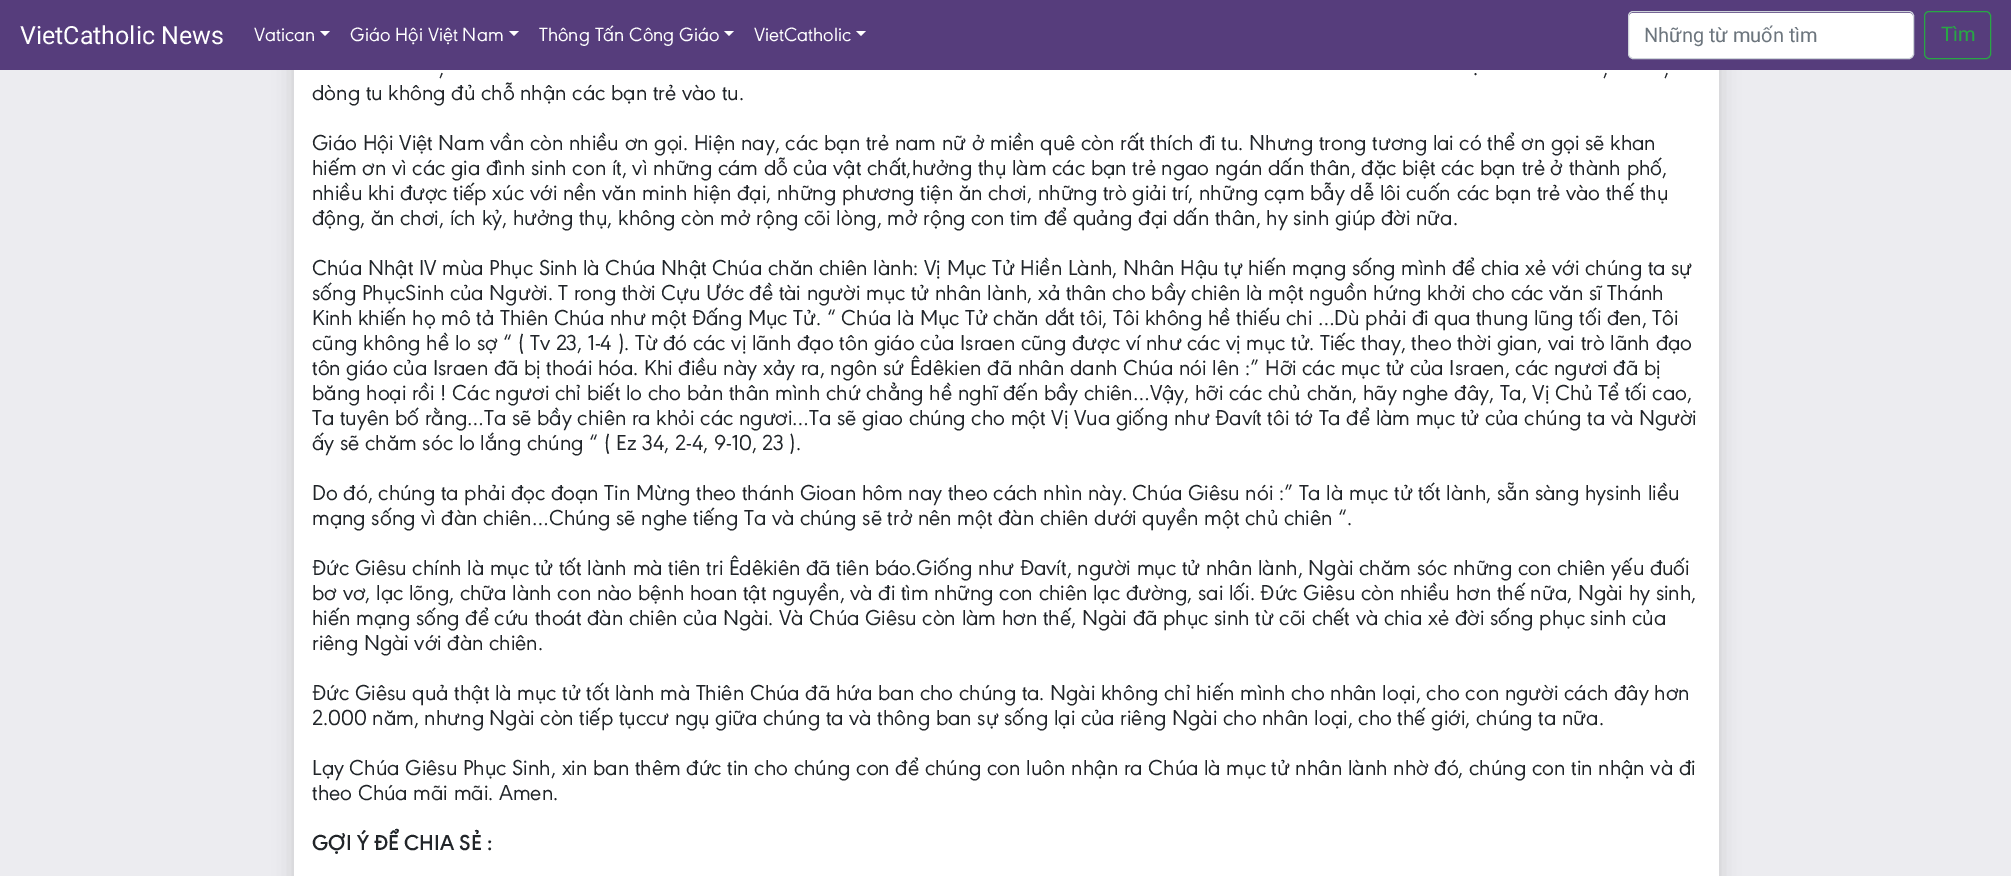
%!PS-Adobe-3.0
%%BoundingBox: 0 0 2011 876
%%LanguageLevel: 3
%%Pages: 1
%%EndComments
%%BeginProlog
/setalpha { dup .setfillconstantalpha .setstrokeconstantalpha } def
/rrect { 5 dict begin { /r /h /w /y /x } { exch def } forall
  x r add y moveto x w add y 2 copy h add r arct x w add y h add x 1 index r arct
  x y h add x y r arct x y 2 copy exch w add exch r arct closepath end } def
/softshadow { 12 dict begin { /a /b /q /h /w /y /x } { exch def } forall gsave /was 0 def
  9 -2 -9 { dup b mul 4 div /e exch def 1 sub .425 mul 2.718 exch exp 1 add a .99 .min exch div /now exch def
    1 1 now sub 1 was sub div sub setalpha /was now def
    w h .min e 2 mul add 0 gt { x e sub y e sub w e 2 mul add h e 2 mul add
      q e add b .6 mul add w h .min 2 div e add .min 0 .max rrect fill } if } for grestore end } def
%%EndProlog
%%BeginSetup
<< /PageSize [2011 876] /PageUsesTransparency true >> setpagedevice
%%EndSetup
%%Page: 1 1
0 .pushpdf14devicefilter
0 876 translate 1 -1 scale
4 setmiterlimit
0.925 0.925 0.941 setrgbcolor
0 0 2011 876 rectfill
0 setgray
294 -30 1425 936 0 10 0.15 softshadow
0.337 0.239 0.486 setrgbcolor
0 0 2011 70 rectfill
1 setgray
newpath 320 31 moveto 330 31 lineto 325 36 lineto closepath fill
newpath 509 31 moveto 519 31 lineto 514 36 lineto closepath fill
newpath 724 31 moveto 734 31 lineto 729 36 lineto closepath fill
newpath 856 31 moveto 866 31 lineto 861 36 lineto closepath fill
1629 13 284 45 4 rrect fill
0.808 0.831 0.855 setrgbcolor
1628.5 11.5 285 47 4.5 rrect stroke
0.157 0.655 0.271 setrgbcolor
1924.5 11.5 66 47 4.5 rrect stroke
1 setgray
294 70 1425 806 rectfill
/Roboto-Regular [25 0 0 -25 0 0] selectfont
20 44 moveto (VietCatholic News) show
/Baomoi-Regular [20 0 0 -20 0 0] selectfont
254 41 moveto (Vatican) show
350 41 moveto (Giáo Hội Việt Nam) show
539 41 moveto (Thông Tấn Công Giáo) show
754 41 moveto (VietCatholic) show
/Roboto-Regular [20 0 0 -20 0 0] selectfont
0.424 0.459 0.49 setrgbcolor
1644 42 moveto (Những từ muốn tìm) show
0.157 0.655 0.271 setrgbcolor
1941 41 moveto (Tìm) show
/Baomoi-Regular [22.5 0 0 -22.5 0 0] selectfont
0.129 0.145 0.161 setrgbcolor
439 75 moveto (,) show
1473 75 moveto (.) show
1603 75 moveto (,) show
1664 75 moveto (,) show
312 100 moveto (dòng tu không đủ chỗ nhận các bạn trẻ vào tu.) show
312 150 moveto (Giáo Hội Việt Nam vần còn nhiều ơn gọi. Hiện nay, các bạn trẻ nam nữ ở miền quê còn rất thích đi tu. Nhưng trong tương lai có thể ơn gọi sẽ khan) show
312 175 moveto (hiếm ơn vì các gia đình sinh con ít, vì những cám dỗ của vật chất,hưởng thụ làm các bạn trẻ ngao ngán dấn thân, đặc biệt các bạn trẻ ở thành phố,) show
312 200 moveto (nhiều khi được tiếp xúc với nền văn minh hiện đại, những phương tiện ăn chơi, những trò giải trí, những cạm bẫy dễ lôi cuốn các bạn trẻ vào thế thụ) show
312 225 moveto (động, ăn chơi, ích kỷ, hưởng thụ, không còn mở rộng cõi lòng, mở rộng con tim để quảng đại dấn thân, hy sinh giúp đời nữa.) show
312 275 moveto (Chúa Nhật IV mùa Phục Sinh là Chúa Nhật Chúa chăn chiên lành: Vị Mục Tử Hiền Lành, Nhân Hậu tự hiến mạng sống mình để chia xẻ với chúng ta sự) show
312 300 moveto (sống PhụcSinh của Người. T rong thời Cựu Ước đề tài người mục tử nhân lành, xả thân cho bầy chiên là một nguồn hứng khởi cho các văn sĩ Thánh) show
312 325 moveto (Kinh khiến họ mô tả Thiên Chúa như một Đấng Mục Tử. “ Chúa là Mục Tử chăn dắt tôi, Tôi không hề thiếu chi …Dù phải đi qua thung lũng tối đen, Tôi) show
312 350 moveto (cũng không hề lo sợ “ \( Tv 23, 1-4 \). Từ đó các vị lãnh đạo tôn giáo của Israen cũng được ví như các vị mục tử. Tiếc thay, theo thời gian, vai trò lãnh đạo) show
312 375 moveto (tôn giáo của Israen đã bị thoái hóa. Khi điều này xảy ra, ngôn sứ Êdêkien đã nhân danh Chúa nói lên :” Hỡi các mục tử của Israen, các ngươi đã bị) show
312 400 moveto (băng hoại rồi ! Các ngươi chỉ biết lo cho bản thân mình chứ chẳng hề nghĩ đến bầy chiên…Vậy, hỡi các chủ chăn, hãy nghe đây, Ta, Vị Chủ Tể tối cao,) show
312 425 moveto (Ta tuyên bố rằng…Ta sẽ bầy chiên ra khỏi các ngươi…Ta sẽ giao chúng cho một Vị Vua giống như Đavít tôi tớ Ta để làm mục tử của chúng ta và Người) show
312 450 moveto (ấy sẽ chăm sóc lo lắng chúng “ \( Ez 34, 2-4, 9-10, 23 \).) show
312 500 moveto (Do đó, chúng ta phải đọc đoạn Tin Mừng theo thánh Gioan hôm nay theo cách nhìn này. Chúa Giêsu nói :” Ta là mục tử tốt lành, sẵn sàng hysinh liều) show
312 525 moveto (mạng sống vì đàn chiên…Chúng sẽ nghe tiếng Ta và chúng sẽ trở nên một đàn chiên dưới quyền một chủ chiên “.) show
312 575 moveto (Đức Giêsu chính là mục tử tốt lành mà tiên tri Êdêkiên đã tiên báo.Giống như Đavít, người mục tử nhân lành, Ngài chăm sóc những con chiên yếu đuối) show
312 600 moveto (bơ vơ, lạc lõng, chữa lành con nào bệnh hoan tật nguyền, và đi tìm những con chiên lạc đường, sai lối. Đức Giêsu còn nhiều hơn thế nữa, Ngài hy sinh,) show
312 625 moveto (hiến mạng sống để cứu thoát đàn chiên của Ngài. Và Chúa Giêsu còn làm hơn thế, Ngài đã phục sinh từ cõi chết và chia xẻ đời sống phục sinh của) show
312 650 moveto (riêng Ngài với đàn chiên.) show
312 700 moveto (Đức Giêsu quả thật là mục tử tốt lành mà Thiên Chúa đã hứa ban cho chúng ta. Ngài không chỉ hiến mình cho nhân loại, cho con người cách đây hơn) show
312 725 moveto (2.000 năm, nhưng Ngài còn tiếp tụccư ngụ giữa chúng ta và thông ban sự sống lại của riêng Ngài cho nhân loại, cho thế giới, chúng ta nữa.) show
312 775 moveto (Lạy Chúa Giêsu Phục Sinh, xin ban thêm đức tin cho chúng con để chúng con luôn nhận ra Chúa là mục tử nhân lành nhờ đó, chúng con tin nhận và đi) show
312 800 moveto (theo Chúa mãi mãi. Amen.) show
/Baomoi-SemiBold [22.5 0 0 -22.5 0 0] selectfont
312 850 moveto (GỢI Ý ĐỂ CHIA SẺ :) show
.poppdf14devicefilter showpage
%%EOF
